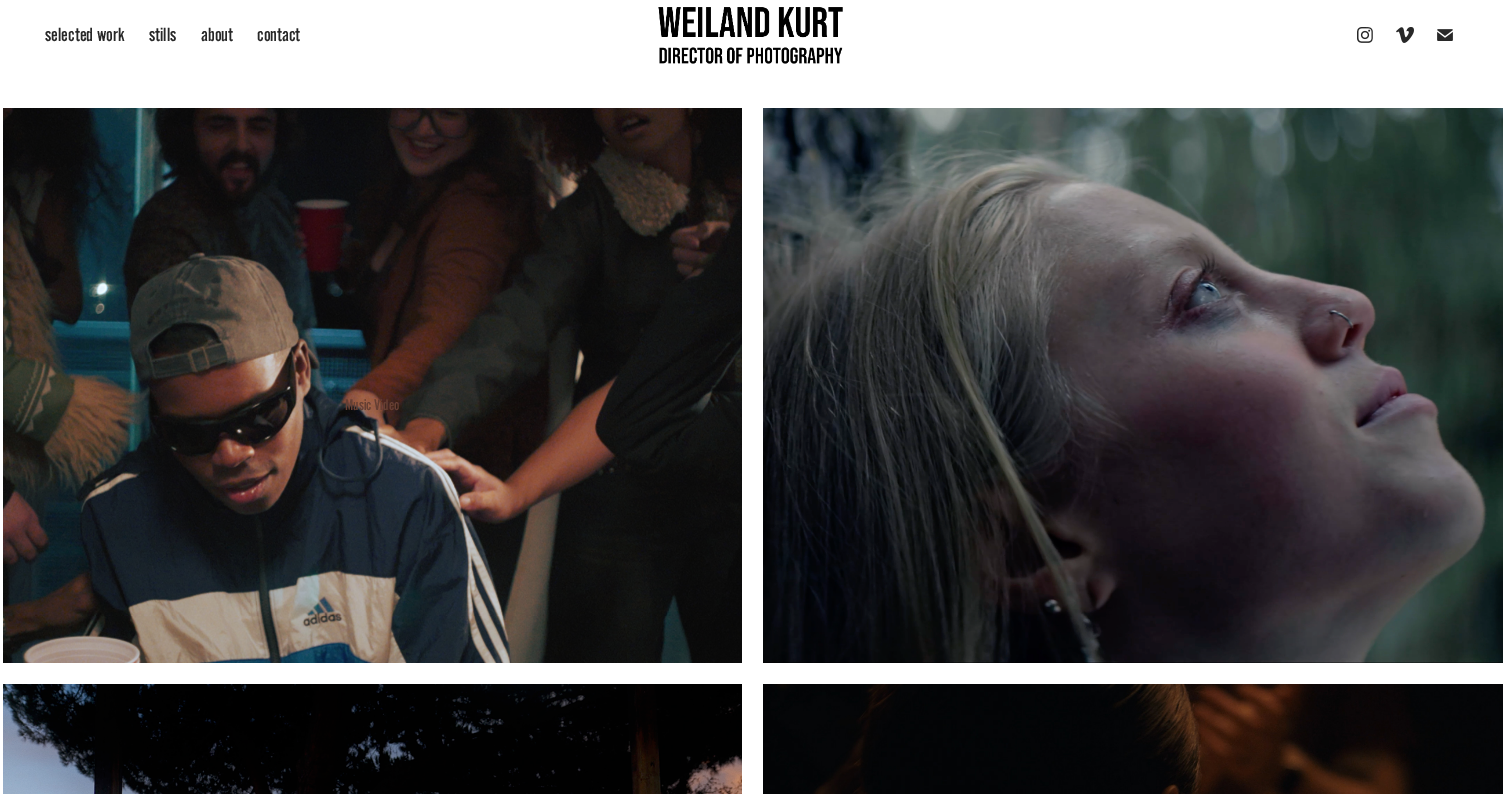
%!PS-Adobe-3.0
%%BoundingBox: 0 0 1505 794
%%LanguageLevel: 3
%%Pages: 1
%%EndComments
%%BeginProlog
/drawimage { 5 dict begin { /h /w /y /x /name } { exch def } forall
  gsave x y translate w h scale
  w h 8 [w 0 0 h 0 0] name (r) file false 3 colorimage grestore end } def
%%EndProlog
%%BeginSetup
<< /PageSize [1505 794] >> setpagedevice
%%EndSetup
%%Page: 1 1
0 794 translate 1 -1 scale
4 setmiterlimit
1 setgray
0 0 1505 794 rectfill
(images/1.raw) 658 7 185 57 drawimage
(images/2.raw) 1357 27 16 16 drawimage
(images/3.raw) 1396 27 18 16 drawimage
(images/4.raw) 1437 29 16 12 drawimage
(images/5.raw) 3 108 739 555 drawimage
(images/6.raw) 763 108 740 555 drawimage
(images/7.raw) 3 684 739 110 drawimage
(images/8.raw) 763 684 740 110 drawimage
/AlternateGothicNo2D-Regular [20 0 0 -20 0 0] selectfont
0.157 setgray
45 41 moveto (selected work) show
149 41 moveto (stills) show
201 41 moveto (about) show
257 41 moveto (contact) show
/AlternateGothicNo2D-Regular [16 0 0 -16 0 0] selectfont
0.4 0.247 0.2 setrgbcolor
345 410 moveto (Music Video) show
showpage
%%EOF
